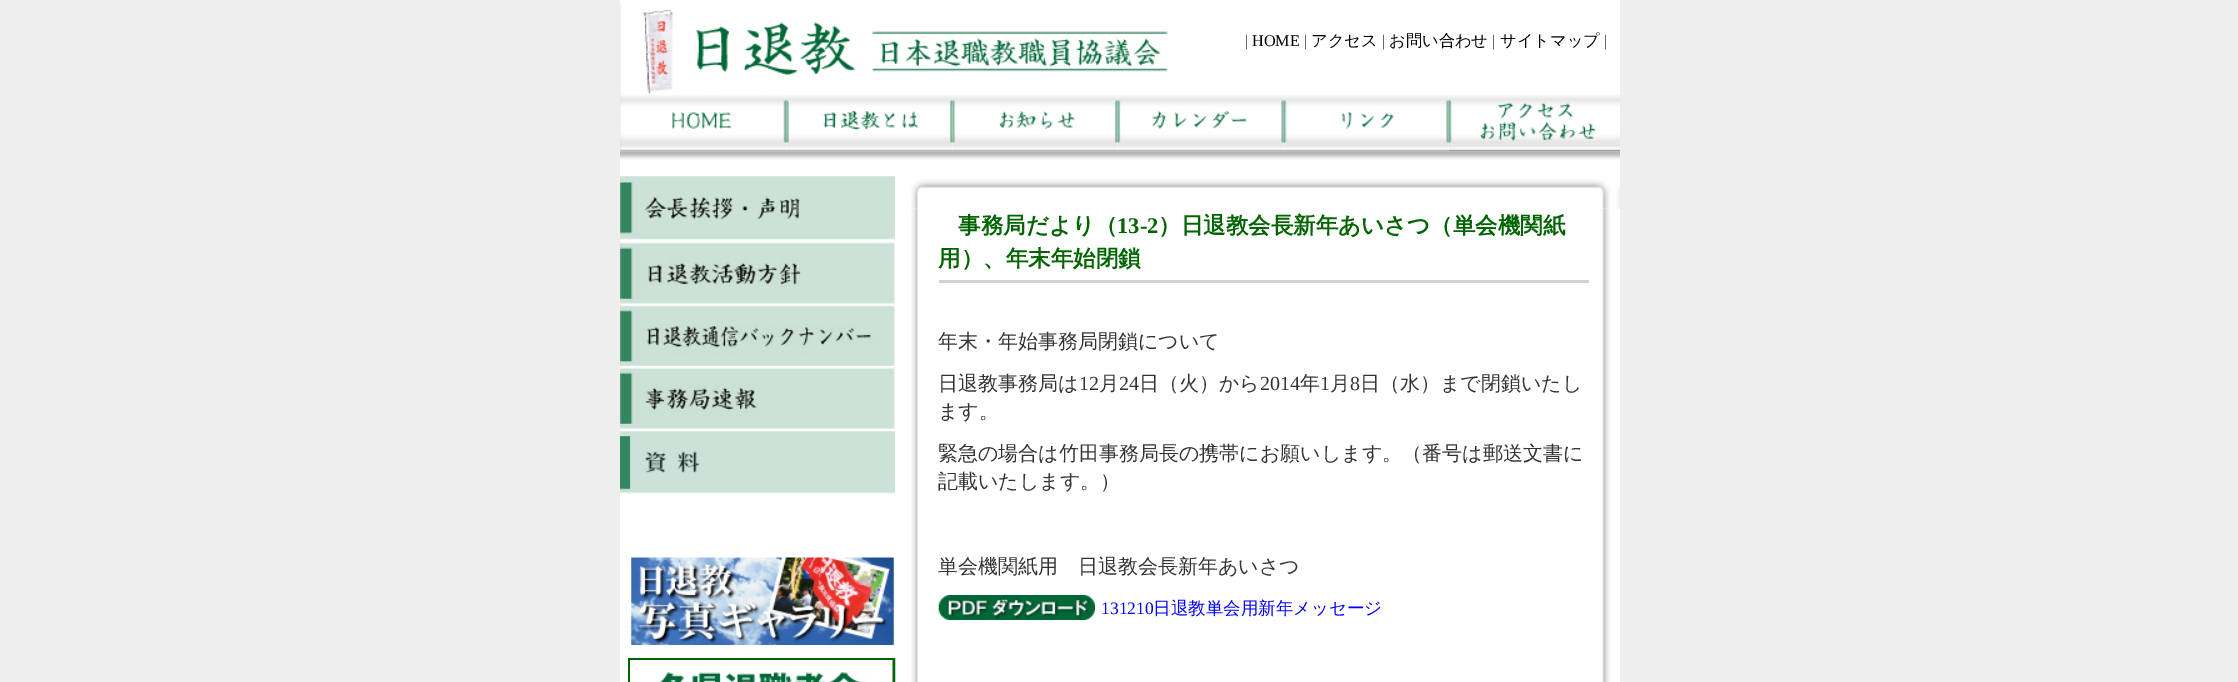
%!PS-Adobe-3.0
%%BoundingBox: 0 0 2238 682
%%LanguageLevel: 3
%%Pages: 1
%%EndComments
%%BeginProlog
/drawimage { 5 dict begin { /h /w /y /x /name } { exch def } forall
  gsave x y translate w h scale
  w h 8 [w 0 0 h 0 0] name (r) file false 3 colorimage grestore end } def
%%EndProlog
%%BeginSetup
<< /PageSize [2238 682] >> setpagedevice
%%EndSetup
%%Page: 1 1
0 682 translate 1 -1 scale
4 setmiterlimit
0.933 setgray
0 0 2238 682 rectfill
1 setgray
620 0 1000 682 rectfill
(images/1.raw) 620 3 548 91 drawimage
(images/8.raw) 620 151 1000 9 drawimage
(images/2.raw) 620 93 167 59 drawimage
(images/3.raw) 786 95 167 57 drawimage
(images/4.raw) 952 95 166 57 drawimage
(images/5.raw) 1117 95 167 57 drawimage
(images/6.raw) 1283 95 166 57 drawimage
(images/7.raw) 1448 95 172 57 drawimage
(images/9.raw) 620 176 275 64 drawimage
(images/10.raw) 620 241 275 63 drawimage
(images/11.raw) 620 303 275 64 drawimage
(images/12.raw) 620 366 275 63 drawimage
(images/13.raw) 620 431 275 63 drawimage
(images/14.raw) 631 557 263 88 drawimage
0 0.392 0 setrgbcolor
3 setlinewidth
629.5 659.5 264 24 rectstroke
(images/15.raw) 630 660 263 22 drawimage
(images/16.raw) 911 179 709 30 drawimage
(images/17.raw) 911 209 700 473 drawimage
0.827 setgray
939 280 650 3 rectfill
(images/18.raw) 938 595 157 25 drawimage
/LiberationSerif-Regular [16.25 0 0 -16.25 0 0] selectfont
0.2 setgray
1245 46 moveto (|) show
0 setgray
1252 46 moveto (HOME) show
0.2 setgray
1304 46 moveto (|) show
/WenQuanYiZenHei-Medium [16.25 0 0 -16.25 0 0] selectfont
0 setgray
1311 46 moveto (アクセス) show
/LiberationSerif-Regular [16.25 0 0 -16.25 0 0] selectfont
0.2 setgray
1382 46 moveto (|) show
/WenQuanYiZenHei-Medium [16.25 0 0 -16.25 0 0] selectfont
0 setgray
1389 46 moveto (お問い合わせ) show
/LiberationSerif-Regular [16.25 0 0 -16.25 0 0] selectfont
0.2 setgray
1492 46 moveto (|) show
/WenQuanYiZenHei-Medium [16.25 0 0 -16.25 0 0] selectfont
0 setgray
1500 46 moveto (サイトマップ) show
/LiberationSerif-Regular [16.25 0 0 -16.25 0 0] selectfont
0.2 setgray
1604 46 moveto (|) show
/WenQuanYiZenHei-Bold [22.5 0 0 -22.5 0 0] selectfont
0 0.392 0 setrgbcolor
958 233 moveto (事務局だより（) show
/LiberationSerif-Bold [22.5 0 0 -22.5 0 0] selectfont
1117 233 moveto (13-2) show
/WenQuanYiZenHei-Bold [22.5 0 0 -22.5 0 0] selectfont
1158 233 moveto (）日退教会長新年あいさつ（単会機関紙) show
938 266 moveto (用）、年末年始閉鎖) show
/WenQuanYiZenHei-Medium [20 0 0 -20 0 0] selectfont
0.2 setgray
938 348 moveto (年末・年始事務局閉鎖について) show
938 390 moveto (日退教事務局は) show
/LiberationSerif-Regular [20 0 0 -20 0 0] selectfont
1079 390 moveto (12) show
/WenQuanYiZenHei-Medium [20 0 0 -20 0 0] selectfont
1099 390 moveto (月) show
/LiberationSerif-Regular [20 0 0 -20 0 0] selectfont
1119 390 moveto (24) show
/WenQuanYiZenHei-Medium [20 0 0 -20 0 0] selectfont
1139 390 moveto (日（火）から) show
/LiberationSerif-Regular [20 0 0 -20 0 0] selectfont
1260 390 moveto (2014) show
/WenQuanYiZenHei-Medium [20 0 0 -20 0 0] selectfont
1300 390 moveto (年) show
/LiberationSerif-Regular [20 0 0 -20 0 0] selectfont
1320 390 moveto (1) show
/WenQuanYiZenHei-Medium [20 0 0 -20 0 0] selectfont
1330 390 moveto (月) show
/LiberationSerif-Regular [20 0 0 -20 0 0] selectfont
1350 390 moveto (8) show
/WenQuanYiZenHei-Medium [20 0 0 -20 0 0] selectfont
1360 390 moveto (日（水）まで閉鎖いたし) show
938 418 moveto (ます。) show
938 460 moveto (緊急の場合は竹田事務局長の携帯にお願いします。（番号は郵送文書に) show
938 488 moveto (記載いたします。）) show
938 573 moveto (単会機関紙用　日退教会長新年あいさつ) show
/LiberationSerif-Regular [17.5 0 0 -17.5 0 0] selectfont
0 0 1 setrgbcolor
1101 614 moveto (131210) show
/WenQuanYiZenHei-Medium [17.5 0 0 -17.5 0 0] selectfont
1153 614 moveto (日退教単会用新年メッセージ) show
showpage
%%EOF
